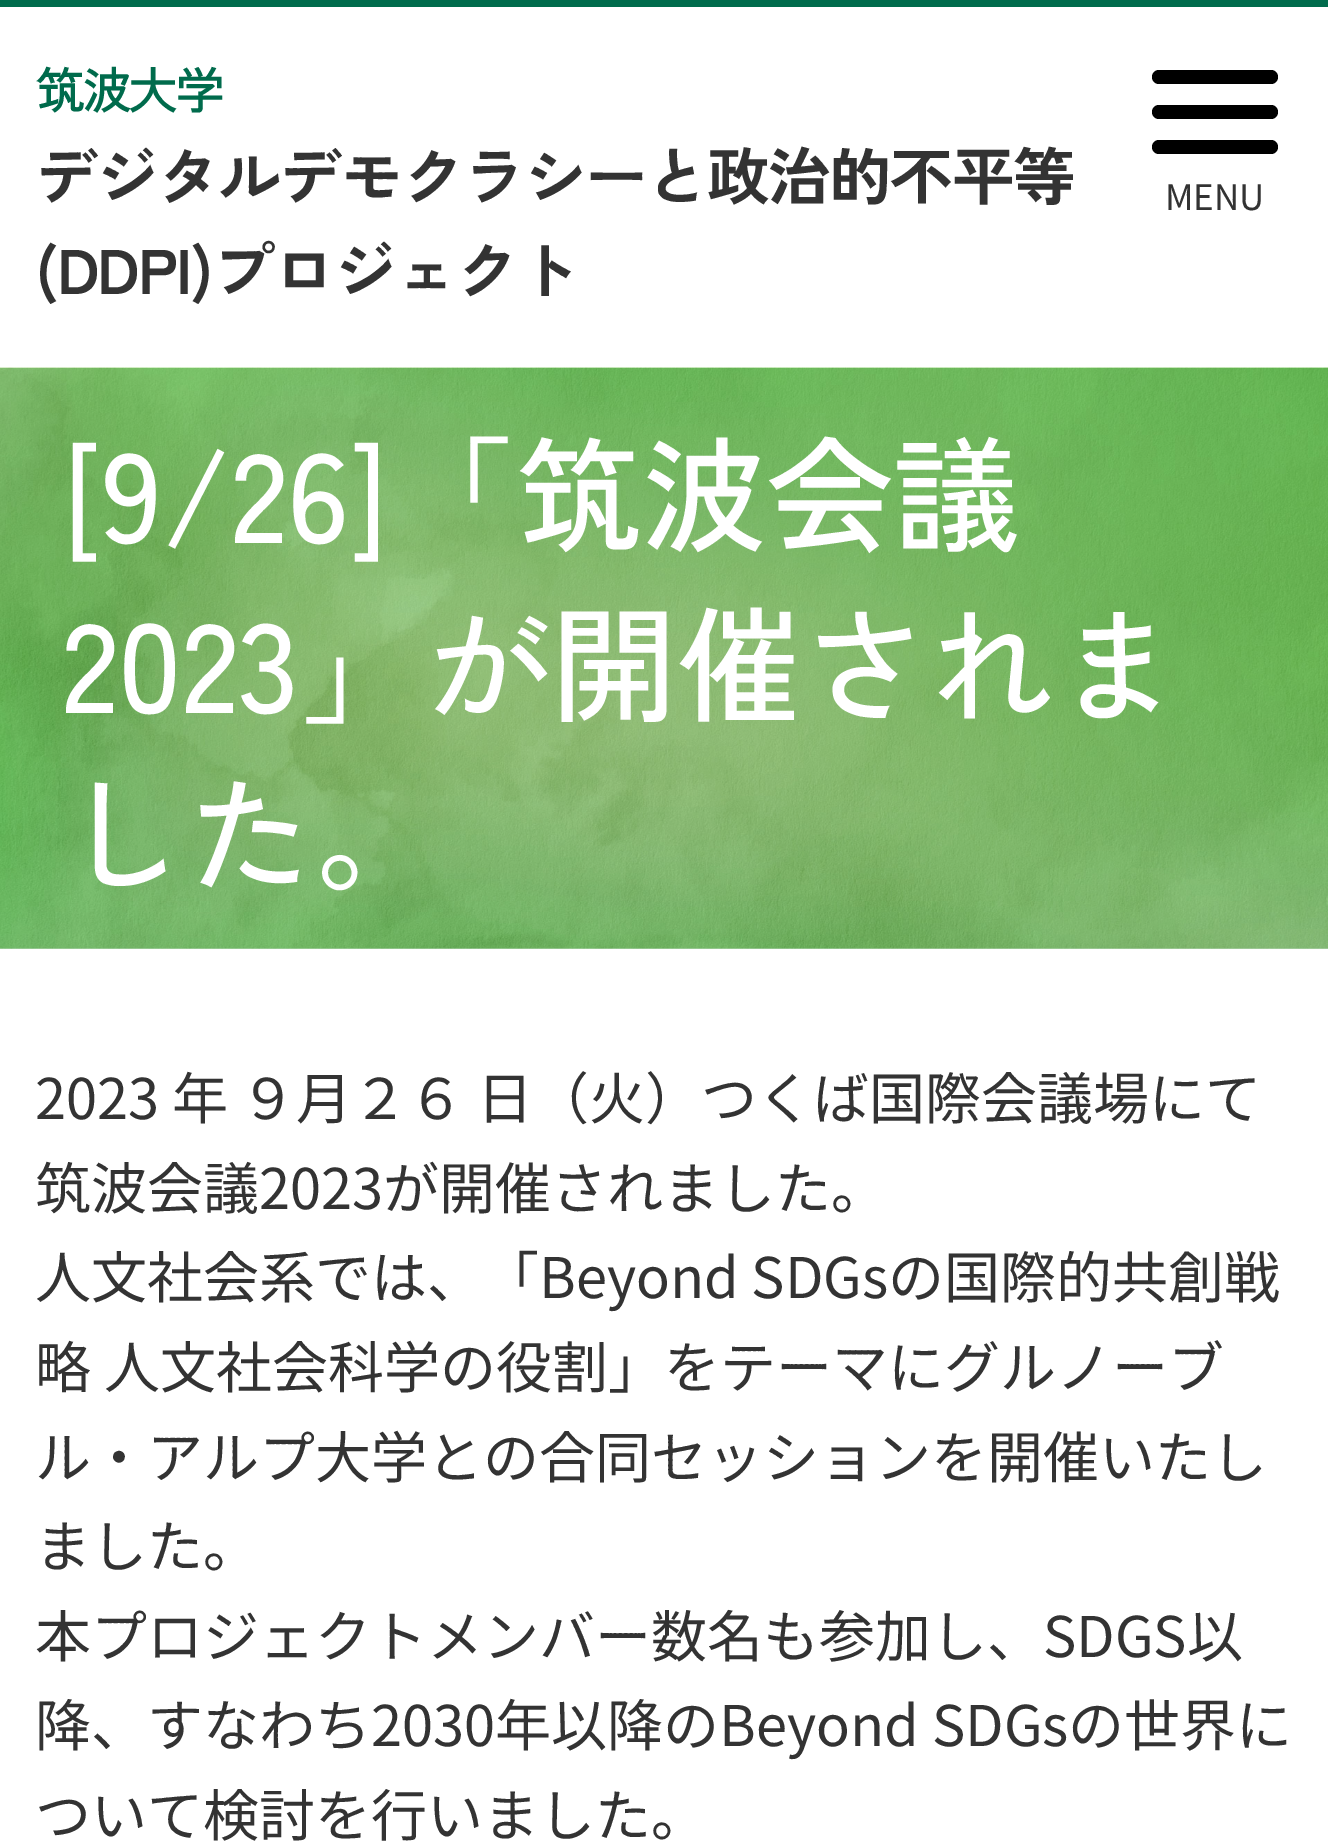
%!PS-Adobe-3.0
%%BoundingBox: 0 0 1328 1842
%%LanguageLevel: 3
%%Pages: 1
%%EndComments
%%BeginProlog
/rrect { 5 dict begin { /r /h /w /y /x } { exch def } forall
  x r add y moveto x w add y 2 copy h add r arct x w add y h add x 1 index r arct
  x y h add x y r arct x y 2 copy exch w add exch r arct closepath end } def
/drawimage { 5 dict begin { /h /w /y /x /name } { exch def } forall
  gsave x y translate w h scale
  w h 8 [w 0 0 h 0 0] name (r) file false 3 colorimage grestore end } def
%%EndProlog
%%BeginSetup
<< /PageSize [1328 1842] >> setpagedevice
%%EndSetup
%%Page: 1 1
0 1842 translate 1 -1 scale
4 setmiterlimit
1 setgray
0 0 1328 1842 rectfill
0.718 0.843 0.722 setrgbcolor
0 948 1328 1 rectfill
0 0.42 0.298 setrgbcolor
0 0 1328 7 rectfill
0 setgray
1152 70 126 14 7 rrect fill
1152 105 126 14 7 rrect fill
1152 140 126 14 7 rrect fill
(images/1.raw) 0 367 1328 582 drawimage
/ZenKakuGothicNew-Bold [49 0 0 -49 0 0] selectfont
0 0.42 0.298 setrgbcolor
35 109 moveto -2.5 0 (筑波大学) ashow
/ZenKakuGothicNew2-Bold [63 0 0 -63 0 0] selectfont
0.2 setgray
35 200 moveto -1.9 0 (デジタルデモクラシーと政治的不平等) ashow
35 294 moveto -1.9 0 (\(DDPI\)プロジェクト) ashow
/NotoSansJP-Regular [35 0 0 -35 0 0] selectfont
1165 210 moveto (MENU) show
/ZenKakuGothicNew-Medium [126 0 0 -126 0 0] selectfont
1 setgray
62 543 moveto ([9/26]「筑波会議) show
62 713 moveto (2023」が開催されま) show
62 883 moveto (した。) show
/NotoSansJP-Regular [56 0 0 -56 0 0] selectfont
0.2 setgray
35 1119 moveto (2023 年 ９⽉２６ ⽇（⽕）つくば国際会議場にて) show
35 1209 moveto (筑波会議2023が開催されました。) show
35 1298 moveto (人文社会系では、「Beyond SDGsの国際的共創戦) show
35 1388 moveto (略 人文社会科学の役割」をテーマにグルノーブ) show
35 1478 moveto (ル・アルプ大学との合同セッションを開催いたし) show
35 1567 moveto (ました。) show
35 1657 moveto (本プロジェクトメンバー数名も参加し、SDGS以) show
35 1746 moveto (降、すなわち2030年以降のBeyond SDGsの世界に) show
35 1836 moveto (ついて検討を行いました。) show
showpage
%%EOF
